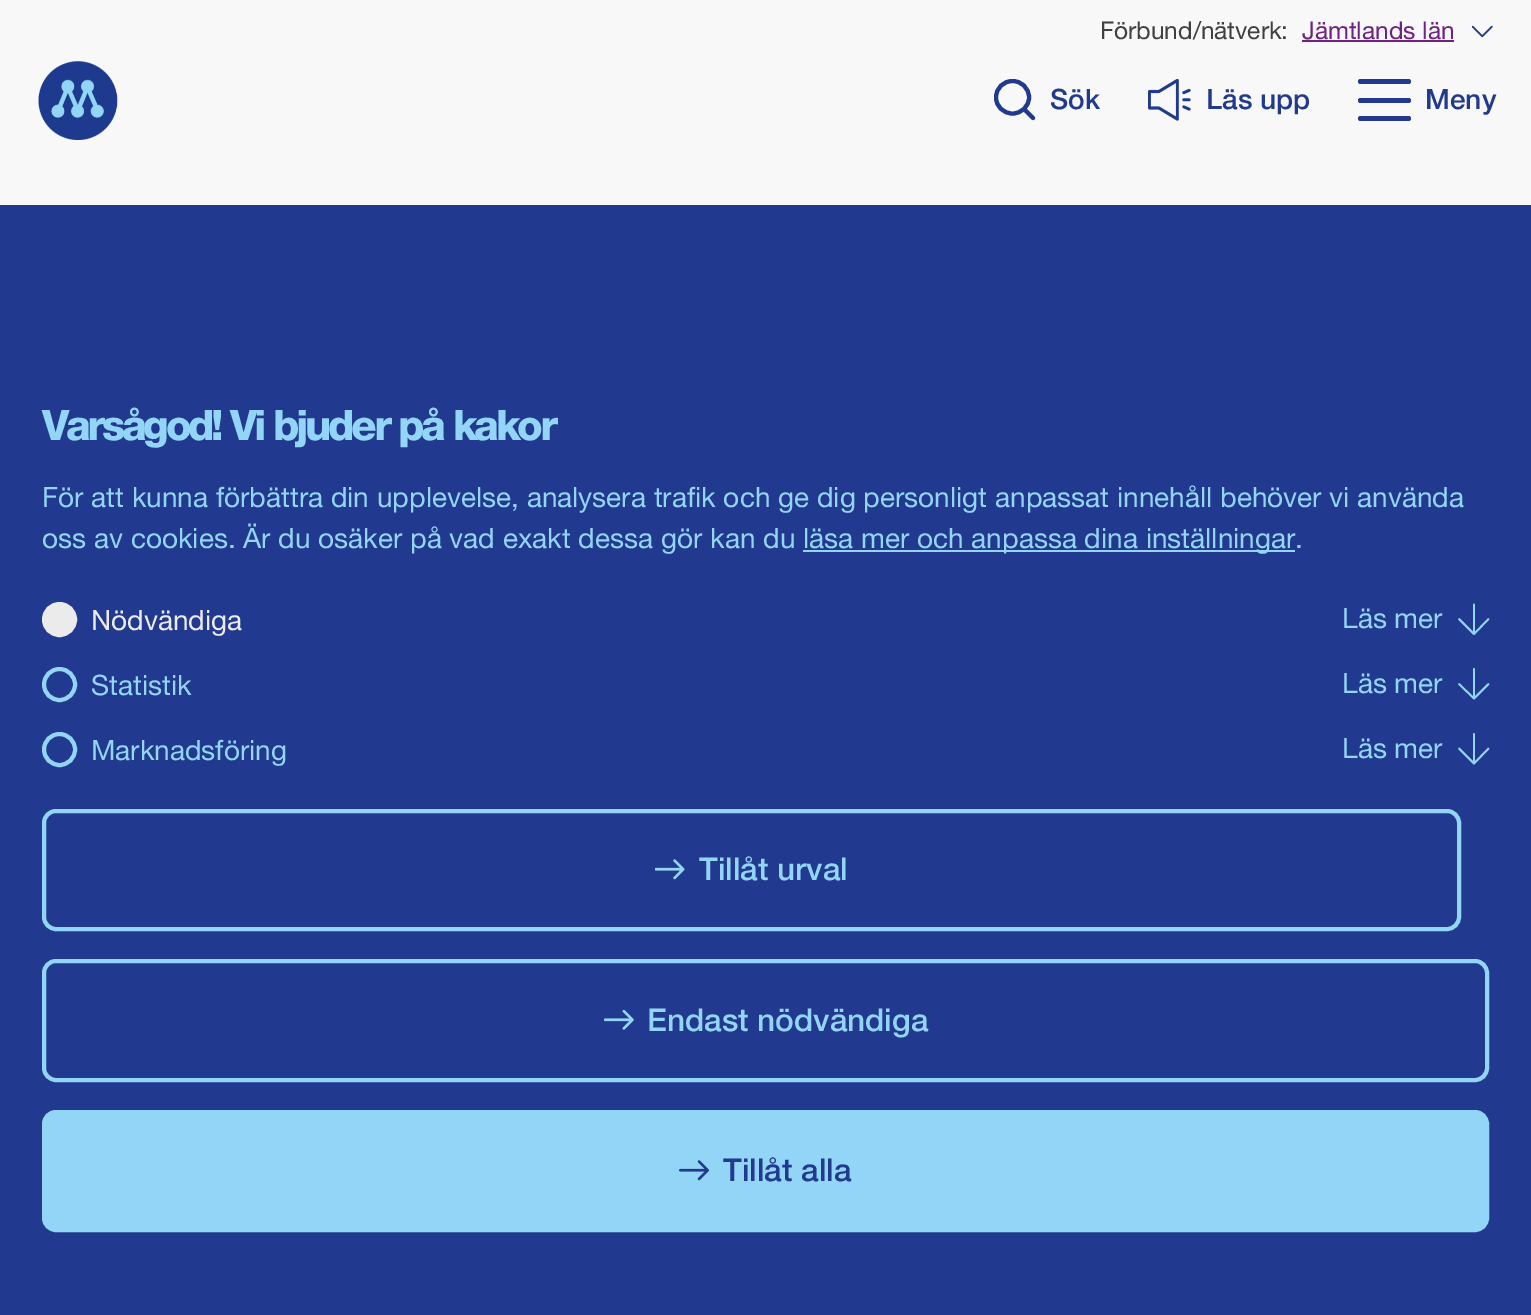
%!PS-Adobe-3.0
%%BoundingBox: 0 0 1531 1315
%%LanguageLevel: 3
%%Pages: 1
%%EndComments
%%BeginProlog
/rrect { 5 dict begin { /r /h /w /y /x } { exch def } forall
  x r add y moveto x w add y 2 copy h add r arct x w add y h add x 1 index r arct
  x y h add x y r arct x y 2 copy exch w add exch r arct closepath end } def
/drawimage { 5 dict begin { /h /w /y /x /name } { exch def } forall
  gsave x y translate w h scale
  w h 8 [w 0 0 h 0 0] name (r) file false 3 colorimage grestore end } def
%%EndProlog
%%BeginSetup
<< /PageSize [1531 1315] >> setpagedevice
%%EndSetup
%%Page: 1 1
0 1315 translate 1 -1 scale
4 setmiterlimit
0.973 setgray
0 0 1531 1315 rectfill
0.439 0.133 0.514 setrgbcolor
1302 40 152 2 rectfill
(images/1.raw) 1472 25 21 13 drawimage
(images/2.raw) 38 61 80 79 drawimage
0.129 0.227 0.561 setrgbcolor
4.1 setlinewidth
1 setlinecap
1 setlinejoin
newpath 1029 97.5 moveto 1029 106.5 1021.5 113.5 1012.5 113.5 curveto 1003.5 113.5 996 106.5 996 97.5 curveto 996 88 1003.5 81 1012.5 81 curveto 1021.5 81 1029 88 1029 97.5 curveto closepath 1033 118 moveto 1024 109 lineto stroke
(images/3.raw) 1148 79 43 42 drawimage
1358 79 53 5 2.5 rrect fill
1358 98 53 5 2.5 rrect fill
1358 116 53 5 2.5 rrect fill
0 205 1531 1110 rectfill
0.576 0.835 0.965 setrgbcolor
803 550 492 2 rectfill
0.922 setgray
newpath 59.5 619.5 15.5 0 360 arc closepath gsave fill grestore
4 setlinewidth
0 setlinecap
0 setlinejoin
stroke
0.576 0.835 0.965 setrgbcolor
1.8 setlinewidth
1 setlinecap
1 setlinejoin
newpath 1474 604.5 moveto 1474 634 lineto 1488.5 619 moveto 1474 634 lineto 1459 619 lineto stroke
4 setlinewidth
0 setlinecap
0 setlinejoin
newpath 59.5 684.5 15.5 0 360 arc closepath stroke
1.8 setlinewidth
1 setlinecap
1 setlinejoin
newpath 1474 669 moveto 1474 698.5 lineto 1488.5 684 moveto 1474 698.5 lineto 1459 684 lineto stroke
4 setlinewidth
0 setlinecap
0 setlinejoin
newpath 59.5 749.5 15.5 0 360 arc closepath stroke
1.8 setlinewidth
1 setlinecap
1 setlinejoin
newpath 1474 734 moveto 1474 763.5 lineto 1488.5 748.5 moveto 1474 763.5 lineto 1459 748.5 lineto stroke
4 setlinewidth
0 setlinecap
0 setlinejoin
44 811 1415 118 12 rrect stroke
(images/4.raw) 655 859 30 21 drawimage
44 961 1443 119 12 rrect stroke
(images/5.raw) 604 1010 30 20 drawimage
44 1112 1443 118 12 rrect gsave fill grestore
stroke
(images/6.raw) 679 1160 30 21 drawimage
/HelveticaNeue-Regular [24.5 0 0 -24.5 0 0] selectfont
0.251 setgray
1100 39 moveto (Förbund/nätverk:) show
0.439 0.133 0.514 setrgbcolor
1302 39 moveto (Jämtlands län) show
/HelveticaNeue-Medium [28 0 0 -28 0 0] selectfont
0.129 0.227 0.561 setrgbcolor
1050 109 moveto (Sök) show
1206 109 moveto (Läs upp) show
1425 109 moveto (Meny) show
/HelveticaNeue-Bold [42 0 0 -42 0 0] selectfont
0.576 0.835 0.965 setrgbcolor
42 440 moveto -3.35 0 (Varsågod! Vi bjuder på kakor) ashow
/HelveticaNeue-Regular [28 0 0 -28 0 0] selectfont
42 507 moveto (För att kunna förbättra din upplevelse, analysera trafik och ge dig personligt anpassat innehåll behöver vi använda) show
42 548 moveto (oss av cookies. Är du osäker på vad exakt dessa gör kan du) show
803 548 moveto (läsa mer och anpassa dina inställningar.) show
0.922 setgray
91 630 moveto (Nödvändiga) show
0.576 0.835 0.965 setrgbcolor
1342 628 moveto (Läs mer) show
91 695 moveto (Statistik) show
1342 693 moveto (Läs mer) show
91 760 moveto (Marknadsföring) show
1342 758 moveto (Läs mer) show
/HelveticaNeue-Medium [31.5 0 0 -31.5 0 0] selectfont
699 880 moveto (Tillåt urval) show
647 1031 moveto (Endast nödvändiga) show
0.129 0.227 0.561 setrgbcolor
723 1181 moveto (Tillåt alla) show
showpage
%%EOF
